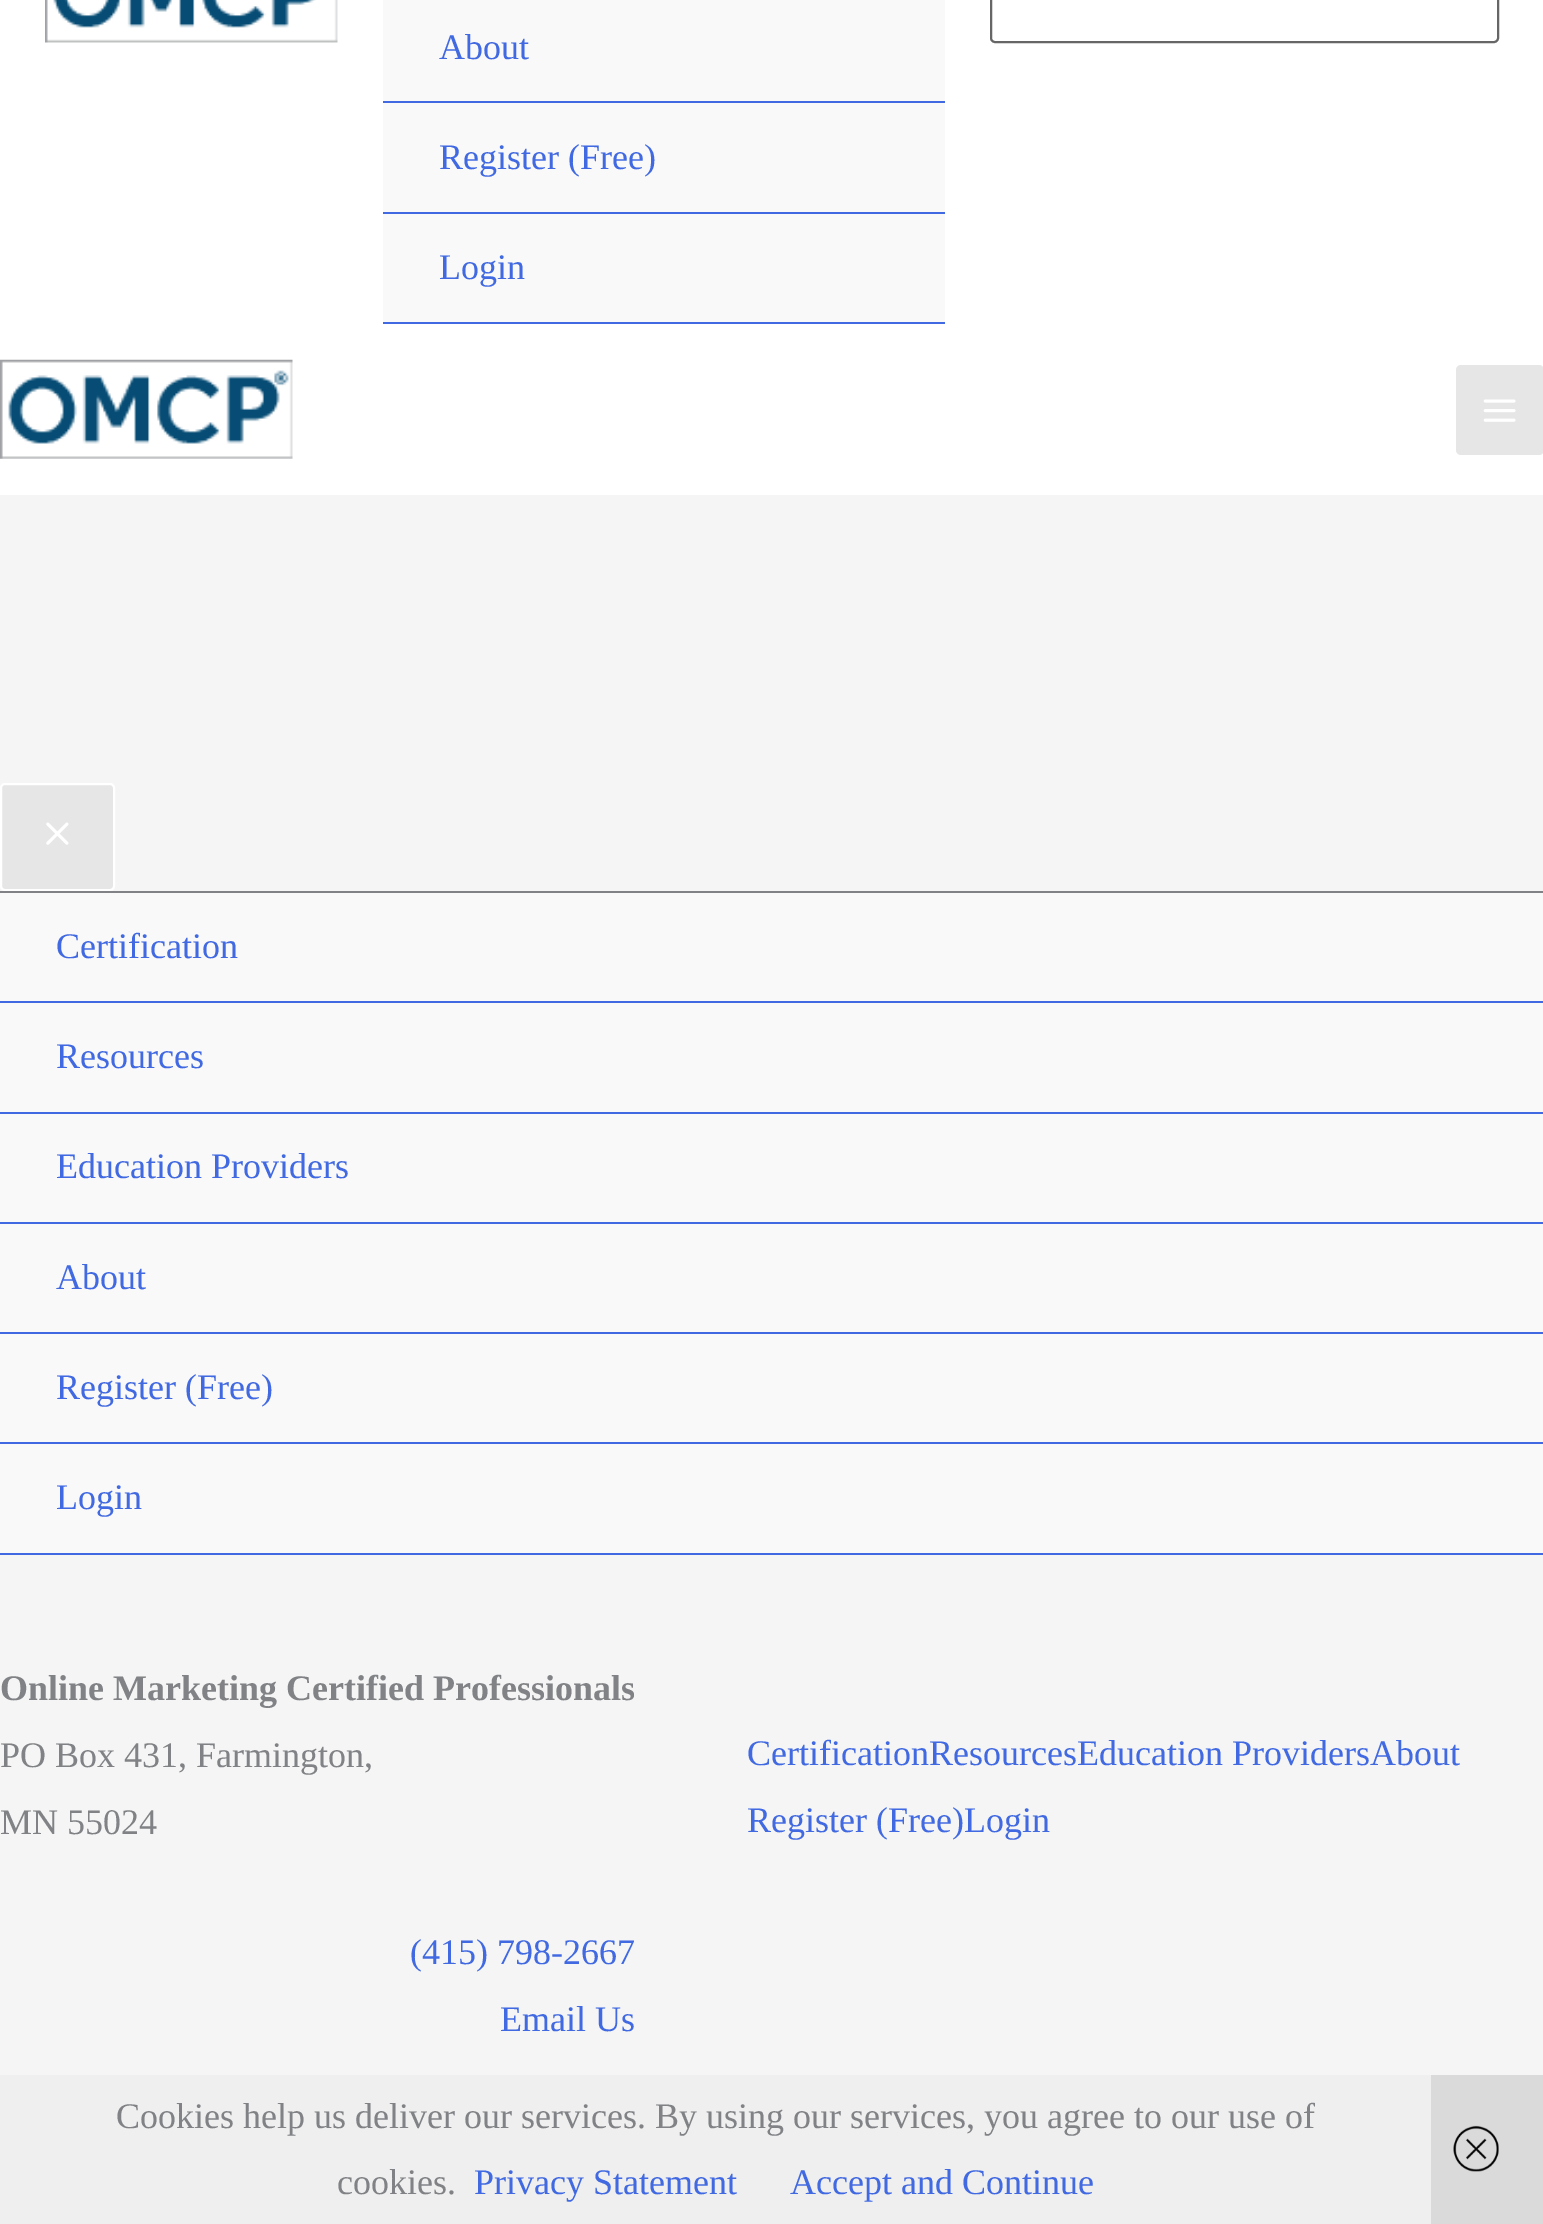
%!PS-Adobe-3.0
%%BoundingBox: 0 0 1543 2224
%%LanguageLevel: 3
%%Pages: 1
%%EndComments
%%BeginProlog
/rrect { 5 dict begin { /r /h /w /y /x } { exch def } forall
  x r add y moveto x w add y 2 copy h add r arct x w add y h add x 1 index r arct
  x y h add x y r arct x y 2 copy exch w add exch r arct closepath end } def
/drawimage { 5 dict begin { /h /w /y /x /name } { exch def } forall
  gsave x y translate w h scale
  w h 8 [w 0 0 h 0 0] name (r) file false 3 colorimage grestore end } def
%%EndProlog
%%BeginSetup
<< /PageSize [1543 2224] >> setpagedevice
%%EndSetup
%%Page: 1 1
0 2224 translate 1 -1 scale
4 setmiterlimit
0.961 setgray
0 0 1543 2224 rectfill
0.937 setgray
0 2075 1431 149 rectfill
1 setgray
0 0 1543 495 rectfill
(images/1.raw) 45 0 293 43 drawimage
0.4 setgray
2 setlinewidth
991 -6 507 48 4 rrect stroke
0.976 setgray
383 0 562 322 rectfill
0.255 0.412 0.882 setrgbcolor
383 101 562 2 rectfill
383 212 562 2 rectfill
383 322 562 2 rectfill
(images/2.raw) 0 359 293 100 drawimage
0.902 setgray
1456 365 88 90 5 rrect fill
(images/3.raw) 1483 399 33 23 drawimage
1 784 113 106 4 rrect gsave fill grestore
1 setgray
stroke
(images/4.raw) 46 822 23 23 drawimage
0.976 setgray
0 893 1543 660 rectfill
0.502 0.51 0.522 setrgbcolor
0 891 1543 2 rectfill
0.255 0.412 0.882 setrgbcolor
0 1001 1543 2 rectfill
0 1112 1543 2 rectfill
0 1222 1543 2 rectfill
0 1332 1543 2 rectfill
0 1442 1543 2 rectfill
0 1553 1543 2 rectfill
0.855 setgray
1431 2075 112 149 rectfill
(images/5.raw) 1453 2125 46 47 drawimage
/LiberationSerif-Regular [36 0 0 -36 0 0] selectfont
0.255 0.412 0.882 setrgbcolor
439 59 moveto (About) show
439 169 moveto (Register \(Free\)) show
439 279 moveto (Login) show
56 958 moveto (Certification) show
56 1068 moveto (Resources) show
56 1178 moveto (Education Providers) show
56 1289 moveto (About) show
56 1399 moveto (Register \(Free\)) show
56 1509 moveto (Login) show
/LiberationSerif-Bold [36 0 0 -36 0 0] selectfont
0.502 0.51 0.522 setrgbcolor
0 1700 moveto (Online Marketing Certified Professionals) show
/LiberationSerif-Regular [36 0 0 -36 0 0] selectfont
0 1767 moveto (PO Box 431, Farmington,) show
0 1834 moveto (MN 55024) show
0.255 0.412 0.882 setrgbcolor
747 1765 moveto (CertificationResourcesEducation ProvidersAbout) show
747 1832 moveto (Register \(Free\)Login) show
410 1964 moveto (\(415\) 798-2667) show
500 2031 moveto (Email Us) show
0.502 0.51 0.522 setrgbcolor
116 2128 moveto (Cookies help us deliver our services. By using our services, you agree to our use of) show
337 2194 moveto (cookies.) show
0.255 0.412 0.882 setrgbcolor
474 2194 moveto (Privacy Statement) show
790 2194 moveto (Accept and Continue) show
showpage
%%EOF
